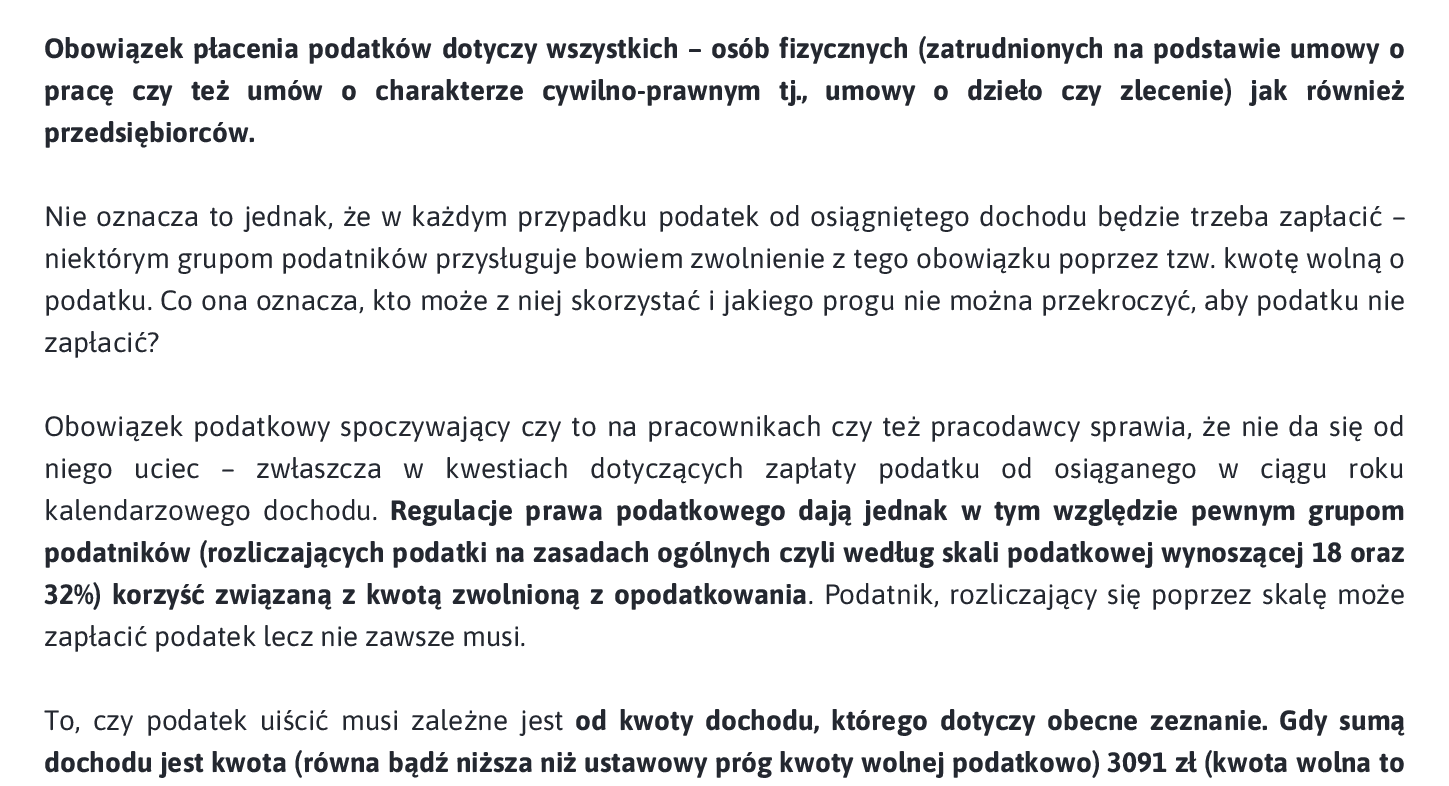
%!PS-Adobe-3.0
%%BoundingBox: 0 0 1449 786
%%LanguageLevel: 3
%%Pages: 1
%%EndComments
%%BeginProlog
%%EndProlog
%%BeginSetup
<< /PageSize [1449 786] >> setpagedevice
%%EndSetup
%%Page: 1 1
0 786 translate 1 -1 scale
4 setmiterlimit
1 setgray
0 0 1449 786 rectfill
/Asap-Bold [28 0 0 -28 0 0] selectfont
0.141 0.157 0.188 setrgbcolor
44 58 moveto 2.5 0 32 (Obowiązek płacenia podatków dotyczy wszystkich – osób fizycznych \(zatrudnionych na podstawie umowy o) widthshow
44 100 moveto 11.25 0 32 (pracę czy też umów o charakterze cywilno-prawnym tj., umowy o dzieło czy zlecenie\) jak również) widthshow
44 142 moveto (przedsiębiorców.) show
/Asap-Regular [28 0 0 -28 0 0] selectfont
44 226 moveto 2.75 0 32 (Nie oznacza to jednak, że w każdym przypadku podatek od osiągniętego dochodu będzie trzeba zapłacić –) widthshow
44 268 moveto 0.3 0 32 (niektórym grupom podatników przysługuje bowiem zwolnienie z tego obowiązku poprzez tzw. kwotę wolną o) widthshow
44 310 moveto 1 0 32 (podatku. Co ona oznacza, kto może z niej skorzystać i jakiego progu nie można przekroczyć, aby podatku nie) widthshow
44 352 moveto (zapłacić?) show
44 436 moveto 3.1 0 32 (Obowiązek podatkowy spoczywający czy to na pracownikach czy też pracodawcy sprawia, że nie da się od) widthshow
44 478 moveto 14.4 0 32 (niego uciec – zwłaszcza w kwestiach dotyczących zapłaty podatku od osiąganego w ciągu roku) widthshow
44 520 moveto 5.75 0 32 (kalendarzowego dochodu.) widthshow
/Asap-Bold [28 0 0 -28 0 0] selectfont
390 520 moveto 5.75 0 32 (Regulacje prawa podatkowego dają) widthshow
864 520 moveto 5.75 0 32 (jednak w tym względzie pewnym grupom) widthshow
44 562 moveto 1 0 32 (podatników \(rozliczających podatki na zasadach ogólnych czyli według skali podatkowej wynoszącej 18 oraz) widthshow
44 604 moveto 3.25 0 32 (32%\) korzyść związaną z kwotą zwolnioną z opodatkowania) widthshow
/Asap-Regular [28 0 0 -28 0 0] selectfont
808 604 moveto 3.25 0 32 (. Podatnik, rozliczający się poprzez skalę może) widthshow
44 646 moveto (zapłacić podatek lecz nie zawsze musi.) show
44 730 moveto 5.25 0 32 (To, czy podatek uiścić musi zależne jest) widthshow
/Asap-Bold [28 0 0 -28 0 0] selectfont
575 730 moveto 5.25 0 32 (od kwoty dochodu, którego dotyczy obecne zeznanie. Gdy sumą) widthshow
44 772 moveto 0.5 0 32 (dochodu jest kwota \(równa bądź niższa niż ustawowy próg kwoty wolnej podatkowo\) 3091 zł \(kwota wolna to) widthshow
showpage
%%EOF
